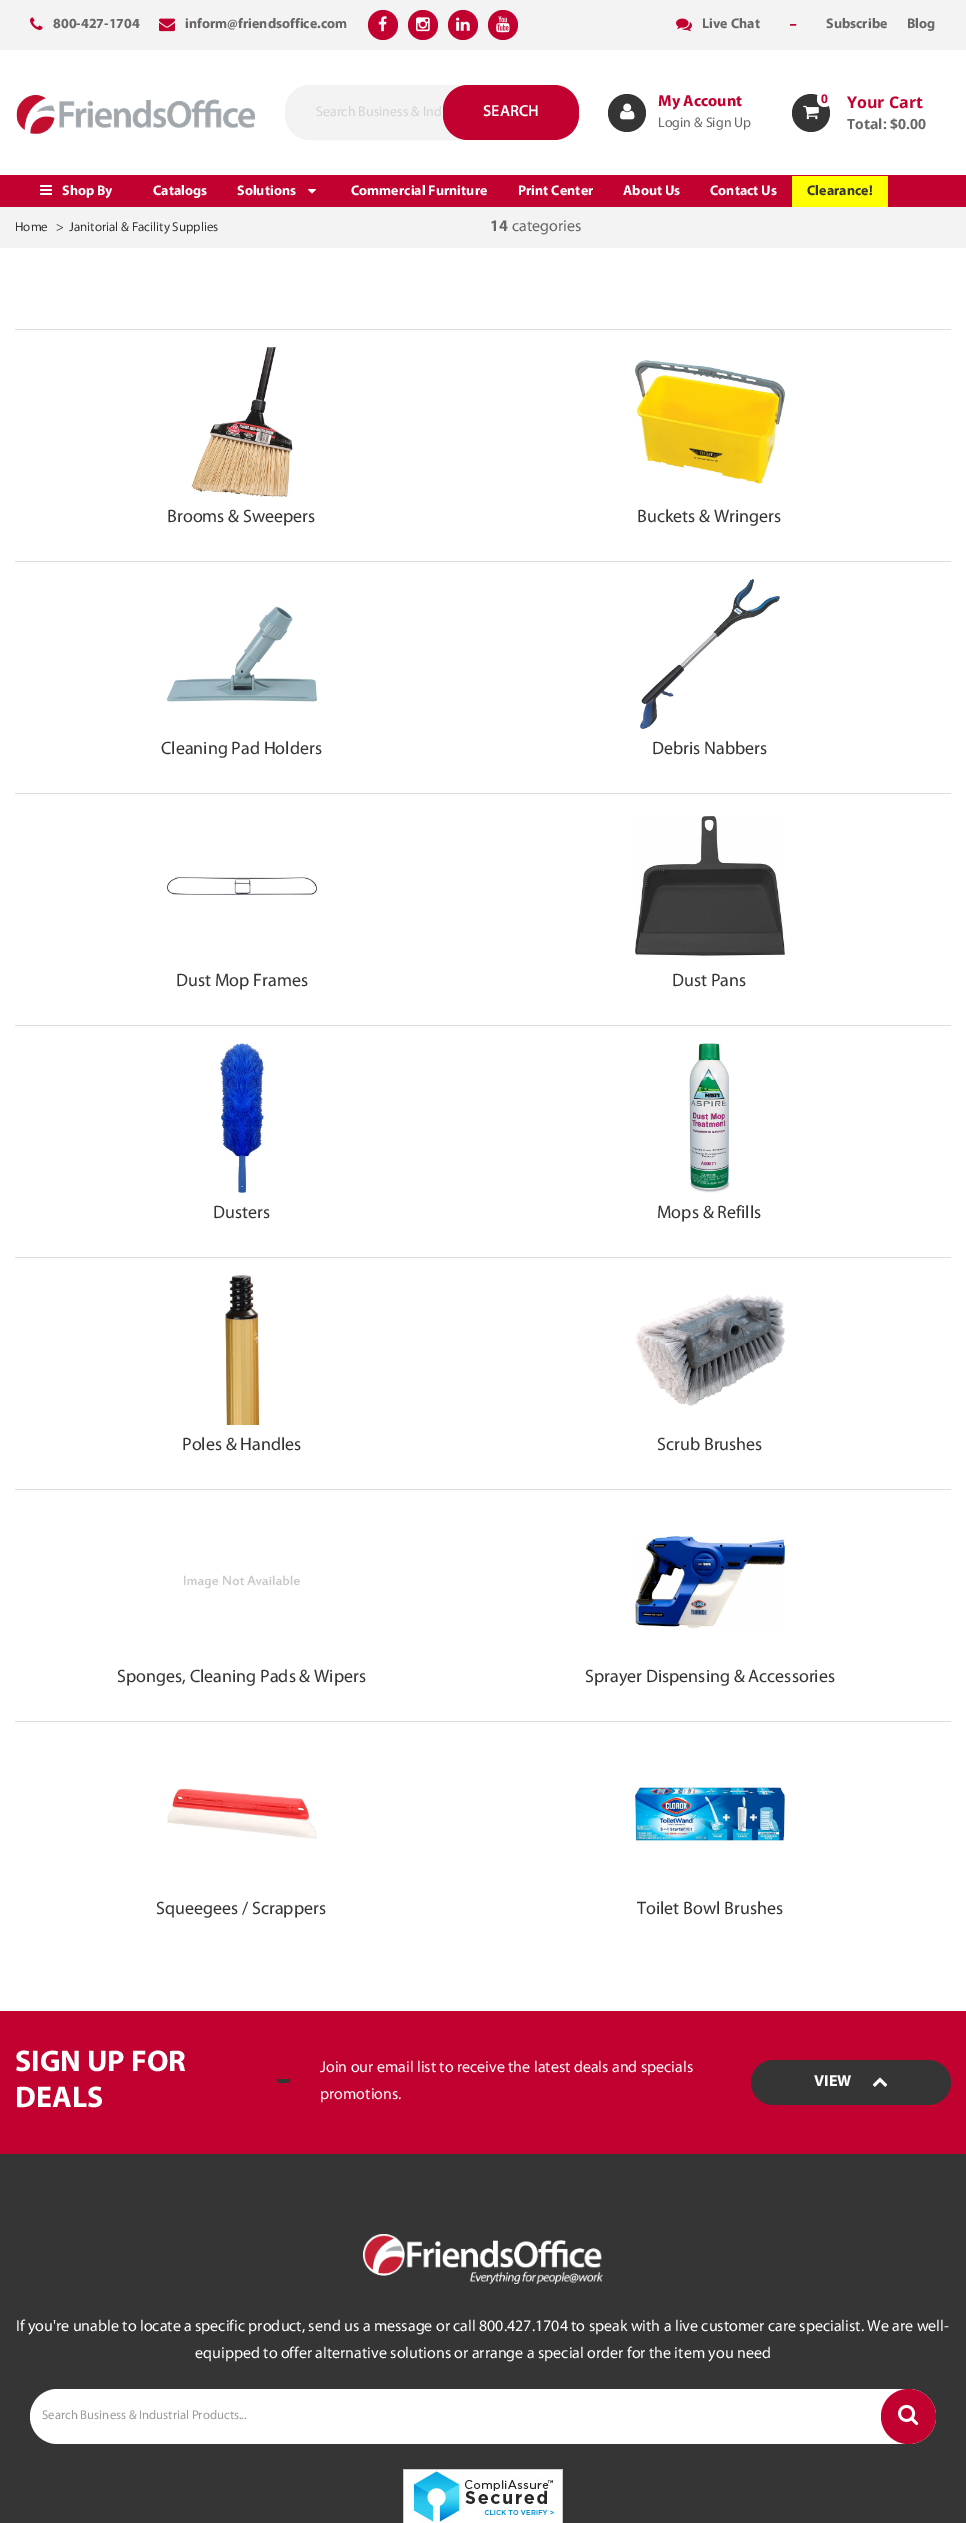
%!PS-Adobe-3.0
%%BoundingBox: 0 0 966 2523
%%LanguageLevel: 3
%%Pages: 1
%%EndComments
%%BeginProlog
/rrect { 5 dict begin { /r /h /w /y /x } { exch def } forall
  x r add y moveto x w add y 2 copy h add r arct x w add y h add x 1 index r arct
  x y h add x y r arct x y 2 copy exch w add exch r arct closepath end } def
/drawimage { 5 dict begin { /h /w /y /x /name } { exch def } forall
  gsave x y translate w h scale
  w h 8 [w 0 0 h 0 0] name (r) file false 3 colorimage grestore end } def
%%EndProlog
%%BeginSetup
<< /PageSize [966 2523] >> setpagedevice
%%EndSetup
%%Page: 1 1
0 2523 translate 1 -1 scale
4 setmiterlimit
1 setgray
0 0 966 2523 rectfill
0.953 setgray
0 0 966 50 rectfill
(images/1.raw) 30 17 13 13 drawimage
(images/2.raw) 159 18 16 14 drawimage
0.757 0.008 0.188 setrgbcolor
newpath 383 25 15 0 360 arc closepath fill
(images/3.raw) 378 16 9 16 drawimage
newpath 423 25 15 0 360 arc closepath fill
(images/4.raw) 416 17 14 15 drawimage
newpath 463 25 15 0 360 arc closepath fill
(images/5.raw) 456 17 14 14 drawimage
newpath 503 25 15 0 360 arc closepath fill
(images/6.raw) 496 16 14 17 drawimage
(images/7.raw) 676 18 16 14 drawimage
(images/8.raw) 790 24 7 2 drawimage
(images/9.raw) 16 95 239 39 drawimage
0.953 setgray
285.5 85.5 292 54 24.5 rrect gsave fill grestore
stroke
0.757 0.008 0.188 setrgbcolor
443 85 136 55 25 rrect fill
0.208 setgray
newpath 627 113 19 0 360 arc closepath fill
(images/10.raw) 620 103 15 17 drawimage
newpath 811 113 19 0 360 arc closepath fill
(images/11.raw) 803 105 16 15 drawimage
1 setgray
817 91 15 16 7.5 rrect fill
0.757 0.008 0.188 setrgbcolor
0 175 966 32 rectfill
(images/12.raw) 40 185 12 10 drawimage
(images/13.raw) 308 189 8 5 drawimage
1 1 0 setrgbcolor
792 176 96 31 rectfill
0.953 setgray
0 207 966 41 rectfill
0.867 setgray
15 329 936 1 rectfill
(images/14.raw) 191 347 102 150 drawimage
(images/15.raw) 635 360 150 126 drawimage
15 561 936 1 rectfill
(images/16.raw) 167 606 150 96 drawimage
(images/17.raw) 640 579 140 150 drawimage
15 793 936 1 rectfill
(images/18.raw) 167 877 150 18 drawimage
(images/19.raw) 635 816 150 140 drawimage
15 1025 936 1 rectfill
(images/20.raw) 220 1043 46 150 drawimage
(images/21.raw) 689 1043 41 150 drawimage
15 1257 936 1 rectfill
(images/22.raw) 225 1275 35 150 drawimage
(images/23.raw) 635 1294 150 112 drawimage
15 1489 936 1 rectfill
(images/24.raw) 184 1575 116 14 drawimage
(images/25.raw) 635 1536 150 93 drawimage
15 1721 936 1 rectfill
(images/26.raw) 167 1788 150 51 drawimage
(images/27.raw) 635 1787 150 58 drawimage
0.208 setgray
0 2154 966 369 rectfill
0.757 0.008 0.188 setrgbcolor
0 2011 966 143 rectfill
0.208 setgray
277 2079 13 4 rectfill
751 2060 200 45 22.5 rrect fill
(images/28.raw) 872 2077 16 10 drawimage
(images/29.raw) 363 2234 240 50 drawimage
1 setgray
30 2389 906 55 27.5 rrect fill
0.757 0.008 0.188 setrgbcolor
newpath 908.5 2416.5 27.5 0 360 arc closepath fill
(images/30.raw) 898 2404 21 22 drawimage
(images/31.raw) 403 2469 160 54 drawimage
/Myriad-Bold [14 0 0 -14 0 0] selectfont
0.404 setgray
53 28 moveto (800-427-1704) show
185 28 moveto (inform@friendsoffice.com) show
702 28 moveto (Live Chat) show
826 28 moveto (Subscribe) show
907 28 moveto (Blog) show
/Myriad-Regular [14 0 0 -14 0 0] selectfont
0.827 setgray
316 116 moveto (Search Business & Ind) show
/Myriad-SemiBold [16 0 0 -16 0 0] selectfont
1 setgray
483 116 moveto (SEARCH) show
/Myriad-Bold [16 0 0 -16 0 0] selectfont
0.757 0.008 0.188 setrgbcolor
658 106 moveto (My Account) show
/Myriad-Regular [14 0 0 -14 0 0] selectfont
0.404 setgray
658 127 moveto (Login & Sign Up) show
/OpenSans-Bold [12 0 0 -12 0 0] selectfont
0.757 0.008 0.188 setrgbcolor
821 103 moveto (0) show
/OpenSans-Bold [16 0 0 -16 0 0] selectfont
847 108 moveto (Your Cart) show
/OpenSans-Bold [14 0 0 -14 0 0] selectfont
0.404 setgray
847 129 moveto (Total: $0.00) show
/Myriad-Bold [14 0 0 -14 0 0] selectfont
1 setgray
62 195 moveto (Shop By) show
153 195 moveto (Catalogs) show
237 195 moveto (Solutions) show
351 195 moveto (Commercial Furniture) show
518 195 moveto (Print Center) show
623 195 moveto (About Us) show
710 195 moveto (Contact Us) show
0.208 setgray
807 195 moveto (Clearance!) show
/Myriad-Regular [13 0 0 -13 0 0] selectfont
15 231 moveto (Home) show
56 231 moveto (>) show
69 231 moveto (Janitorial & Facility Supplies) show
/Myriad-Bold [16 0 0 -16 0 0] selectfont
0.404 setgray
490 231 moveto (14) show
/Myriad-Regular [16 0 0 -16 0 0] selectfont
512 231 moveto (categories) show
/Myriad-Regular [18 0 0 -18 0 0] selectfont
0.208 setgray
167 522 moveto (Brooms & Sweepers) show
637 522 moveto (Buckets & Wringers) show
161 754 moveto (Cleaning Pad Holders) show
652 754 moveto (Debris Nabbers) show
176 986 moveto (Dust Mop Frames) show
672 986 moveto (Dust Pans) show
213 1218 moveto (Dusters) show
657 1218 moveto (Mops & Refills) show
182 1450 moveto (Poles & Handles) show
657 1450 moveto (Scrub Brushes) show
117 1682 moveto (Sponges, Cleaning Pads & Wipers) show
585 1682 moveto (Sprayer Dispensing & Accessories) show
156 1914 moveto (Squeegees / Scrappers) show
637 1914 moveto (Toilet Bowl Brushes) show
/Myriad-Bold [30 0 0 -30 0 0] selectfont
1 setgray
15 2071 moveto (SIGN UP FOR) show
15 2107 moveto (DEALS) show
/Myriad-Regular [16 0 0 -16 0 0] selectfont
320 2072 moveto (Join our email list to receive the latest deals and specials) show
320 2099 moveto (promotions.) show
/Myriad-Bold [16 0 0 -16 0 0] selectfont
814 2086 moveto (VIEW) show
/Myriad-Regular [16 0 0 -16 0 0] selectfont
16 2331 moveto (If you're unable to locate a specific product, send us a message or call 800.427.1704 to speak with a live customer care specialist. We are well-) show
195 2358 moveto (equipped to offer alternative solutions or arrange a special order for the item you need) show
/Myriad-Regular [12.75 0 0 -12.75 0 0] selectfont
0.6 setgray
42 2419 moveto (Search Business & Industrial Products...) show
showpage
%%EOF
